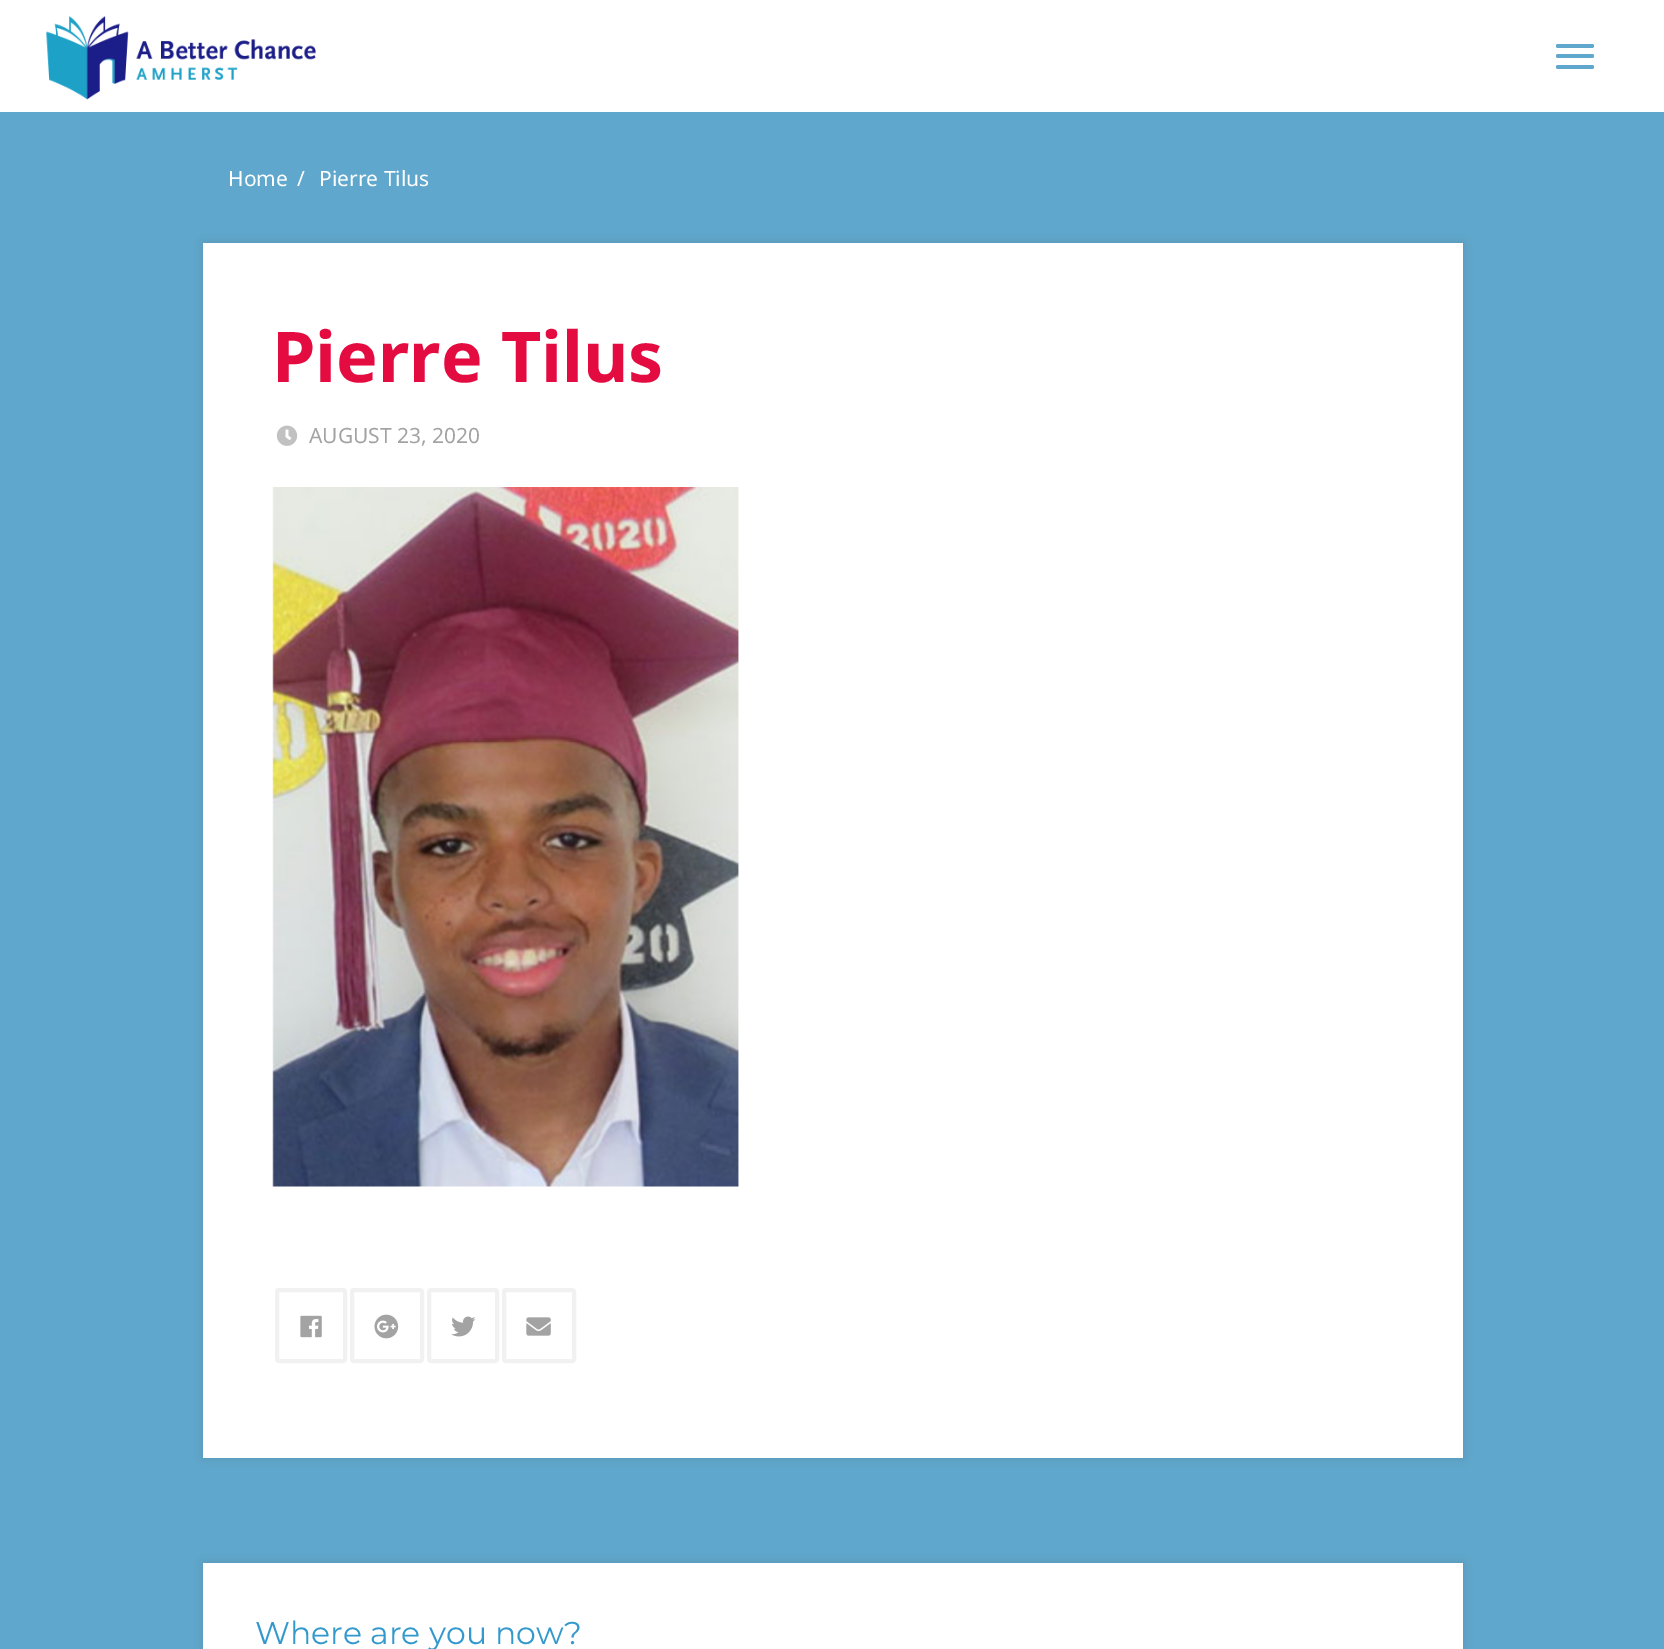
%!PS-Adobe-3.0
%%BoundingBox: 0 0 1664 1649
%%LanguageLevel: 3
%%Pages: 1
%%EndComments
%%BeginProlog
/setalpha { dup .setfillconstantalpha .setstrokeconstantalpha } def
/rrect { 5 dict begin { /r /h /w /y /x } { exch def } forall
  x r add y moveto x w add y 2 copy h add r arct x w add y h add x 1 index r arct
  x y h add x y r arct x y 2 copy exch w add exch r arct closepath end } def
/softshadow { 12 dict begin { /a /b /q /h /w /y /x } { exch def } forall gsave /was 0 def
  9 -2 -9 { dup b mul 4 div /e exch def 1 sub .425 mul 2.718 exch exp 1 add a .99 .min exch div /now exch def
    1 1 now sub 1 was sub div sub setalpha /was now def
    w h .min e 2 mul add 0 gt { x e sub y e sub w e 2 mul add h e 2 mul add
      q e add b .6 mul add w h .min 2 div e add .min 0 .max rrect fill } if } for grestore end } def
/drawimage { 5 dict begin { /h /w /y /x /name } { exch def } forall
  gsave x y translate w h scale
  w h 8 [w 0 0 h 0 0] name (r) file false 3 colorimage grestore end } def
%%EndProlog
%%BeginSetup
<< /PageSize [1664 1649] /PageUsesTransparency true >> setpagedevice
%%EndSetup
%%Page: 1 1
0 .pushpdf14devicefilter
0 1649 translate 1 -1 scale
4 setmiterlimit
1 setgray
0 0 1664 1649 rectfill
(images/1.raw) 46 15 270 85 drawimage
0.373 0.655 0.8 setrgbcolor
1556 44 38 4 2 rrect fill
1556 54 38 4 2 rrect fill
1556 65 38 4 2 rrect fill
0 112 1664 1537 rectfill
0 setgray
203 243 1260 1215 0 4.5 0.1 softshadow
1 setgray
203 243 1260 1215 rectfill
(images/2.raw) 276 425 22 21 drawimage
(images/3.raw) 272 487 467 700 drawimage
0.945 setgray
4 setlinewidth
277 1290 68 71 2 rrect stroke
(images/4.raw) 300 1315 22 23 drawimage
352 1290 70 71 2 rrect stroke
(images/5.raw) 374 1314 25 25 drawimage
429 1290 68 71 2 rrect stroke
(images/6.raw) 451 1316 25 21 drawimage
504 1290 70 71 2 rrect stroke
(images/7.raw) 526 1317 25 19 drawimage
0 setgray
203 1563 1260 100 0 4.5 0.1 softshadow
1 setgray
203 1563 1260 86 rectfill
/NotoSans-Regular [21 0 0 -21 0 0] selectfont
228 186 moveto (Home) show
297 186 moveto (/) show
319 186 moveto (Pierre Tilus) show
/NotoSans-Bold [70 0 0 -70 0 0] selectfont
0.89 0.043 0.251 setrgbcolor
272 382 moveto (Pierre Tilus) show
/NotoSans-Regular [21 0 0 -21 0 0] selectfont
0.639 setgray
309 443 moveto (AUGUST 23, 2020) show
/Montserrat-Thin [31.5 0 0 -31.5 0 0] selectfont
0.2 0.6 0.8 setrgbcolor
255 1644 moveto (Where are you now?) show
.poppdf14devicefilter showpage
%%EOF
